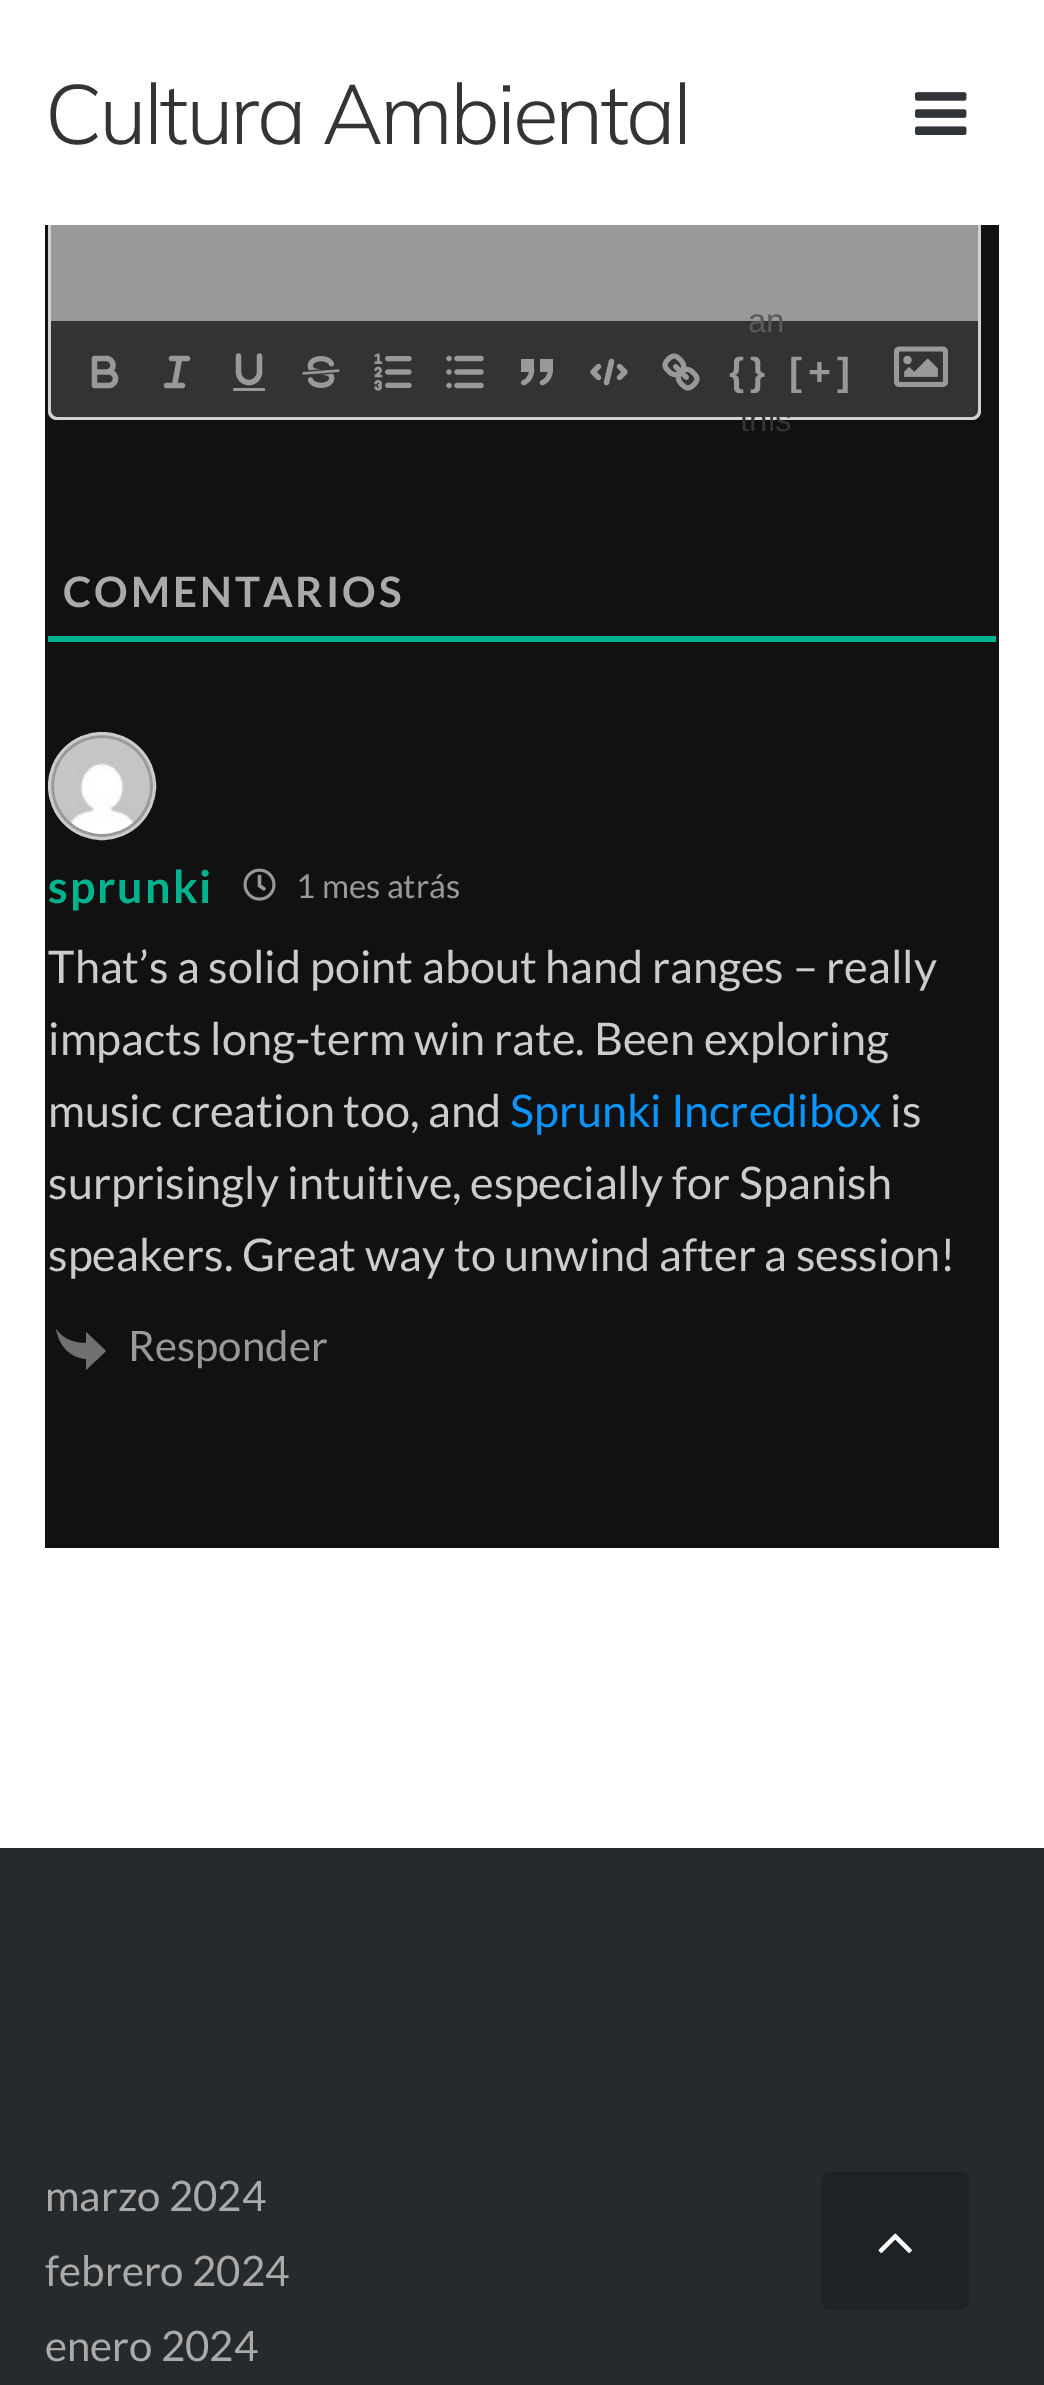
%!PS-Adobe-3.0
%%BoundingBox: 0 0 1044 2385
%%LanguageLevel: 3
%%Pages: 1
%%EndComments
%%BeginProlog
/rrect { 5 dict begin { /r /h /w /y /x } { exch def } forall
  x r add y moveto x w add y 2 copy h add r arct x w add y h add x 1 index r arct
  x y h add x y r arct x y 2 copy exch w add exch r arct closepath end } def
/drawimage { 5 dict begin { /h /w /y /x /name } { exch def } forall
  gsave x y translate w h scale
  w h 8 [w 0 0 h 0 0] name (r) file false 3 colorimage grestore end } def
%%EndProlog
%%BeginSetup
<< /PageSize [1044 2385] >> setpagedevice
%%EndSetup
%%Page: 1 1
0 2385 translate 1 -1 scale
4 setmiterlimit
1 setgray
0 0 1044 2385 rectfill
0.067 setgray
45 225 954 1323 rectfill
0.6 setgray
51 225 927 96 rectfill
0.82 setgray
newpath 57 123 moveto 972 123 lineto 977 123 981 127 981 132 curveto 981 321 lineto 48 321 lineto 48 132 lineto 48 127 52 123 57 123 curveto closepath 57 126 moveto 972 126 lineto 975 126 978 129 978 132 curveto 978 321 lineto 51 321 lineto 51 132 lineto 51 129 54 126 57 126 curveto closepath eofill
1 setgray
48 123 933 102 rectfill
(images/1.raw) 915 92 52 43 drawimage
0.2 setgray
newpath 48 321 moveto 981 321 lineto 981 411 lineto 981 416 977 420 972 420 curveto 57 420 lineto 52 420 48 416 48 411 curveto closepath fill
0.82 setgray
newpath 48 321 moveto 981 321 lineto 981 411 lineto 981 416 977 420 972 420 curveto 57 420 lineto 52 420 48 416 48 411 curveto closepath 51 321 moveto 978 321 lineto 978 411 lineto 978 414 975 417 972 417 curveto 57 417 lineto 54 417 51 414 51 411 curveto closepath eofill
0.6 setgray
5.3 setlinewidth
1 setlinecap
1 setlinejoin
newpath 94.5 358.5 moveto 106.5 358.5 lineto 110 358.5 113 361.5 113 365.5 curveto 113 369 110 372 106.5 372 curveto 94.5 372 lineto closepath 94.5 372 moveto 109 372 lineto 112.5 372 115.5 375 115.5 378.5 curveto 115.5 382.5 112.5 385.5 109 385.5 curveto 94.5 385.5 lineto closepath stroke
newpath 171.5 358.5 moveto 187.5 358.5 lineto 166.5 385.5 moveto 182.5 385.5 lineto 174.5 385.5 moveto 179.5 358.5 lineto stroke
newpath 238.5 356 moveto 238.5 372 lineto 238.5 378 243 382.5 249 382.5 curveto 255 382.5 259.5 378 259.5 372 curveto 259.5 356 lineto stroke
233 388 32 3 1.5 rrect fill
(images/2.raw) 302 356 38 32 drawimage
(images/3.raw) 374 353 38 38 drawimage
newpath 457 358.5 moveto 481 358.5 lineto 457 372 moveto 481 372 lineto 457 385.5 moveto 481 385.5 lineto 449 358.5 moveto 449 358.5 lineto 449 372 moveto 449 372 lineto 449 385.5 moveto 449 385.5 lineto stroke
(images/4.raw) 662 353 38 38 drawimage
(images/5.raw) 894 346 54 41 drawimage
(images/6.raw) 521 359 32 27 drawimage
newpath 598.5 366.5 moveto 593 372 lineto 598.5 377.5 lineto 619.5 366.5 moveto 625 372 lineto 619.5 377.5 lineto 611.5 361.5 moveto 606.5 382.5 lineto stroke
0 0.702 0.561 setrgbcolor
48 636 948 6 rectfill
0.6 setgray
newpath 102 786 52.5 0 360 arc closepath gsave fill grestore
0.8 setgray
3 setlinewidth
0 setlinecap
0 setlinejoin
stroke
(images/7.raw) 54 738 96 96 drawimage
(images/8.raw) 243 868 33 33 drawimage
0.439 setgray
newpath 86 1359 moveto 86 1370 lineto 106 1351 lineto 86 1332 lineto 86 1343 lineto 73 1343 63 1339 56 1329 curveto 59 1343 67 1357 86 1359 curveto closepath fill
0.153 0.165 0.176 setrgbcolor
0 1848 1044 537 rectfill
0.122 0.133 0.141 setrgbcolor
822 2172 147 138 9 rrect fill
(images/9.raw) 878 2233 34 20 drawimage
/Mulish-ExtraLight [84 0 0 -84 0 0] selectfont
0.204 setgray
45 144 moveto -3 0 (Cultura Ambiental) ashow
/LiberationSans-Regular [33 0 0 -33 0 0] selectfont
0.349 setgray
748 332 moveto (an) show
0.204 setgray
740 431 moveto (this) show
/LiberationSans-Bold [39 0 0 -39 0 0] selectfont
0.6 setgray
729 385 moveto 6 0 ({}) ashow
789 385 moveto 6 0 ([+]) ashow
/Lato-Bold [42 0 0 -42 0 0] selectfont
0.667 setgray
63 607 moveto 3 0 (COMENTARIOS) ashow
/Lato-Bold [45 0 0 -45 0 0] selectfont
0 0.702 0.561 setrgbcolor
48 903 moveto 2 0 (sprunki) ashow
/Lato-Regular [33 0 0 -33 0 0] selectfont
0.6 setgray
296 898 moveto (1 mes atrás) show
/Lato-Regular [45 0 0 -45 0 0] selectfont
0.8 setgray
48 983 moveto (That’s a solid point about hand ranges – really) show
48 1055 moveto (impacts long-term win rate. Been exploring) show
48 1127 moveto (music creation too, and) show
0.031 0.588 0.996 setrgbcolor
510 1127 moveto (Sprunki Incredibox) show
0.8 setgray
890 1127 moveto (is) show
48 1199 moveto (surprisingly intuitive, especially for Spanish) show
48 1271 moveto (speakers. Great way to unwind after a session!) show
/Lato-Regular [42 0 0 -42 0 0] selectfont
0.6 setgray
128 1361 moveto (Responder) show
0.667 setgray
45 2211 moveto (marzo 2024) show
45 2286 moveto (febrero 2024) show
45 2361 moveto (enero 2024) show
showpage
%%EOF
